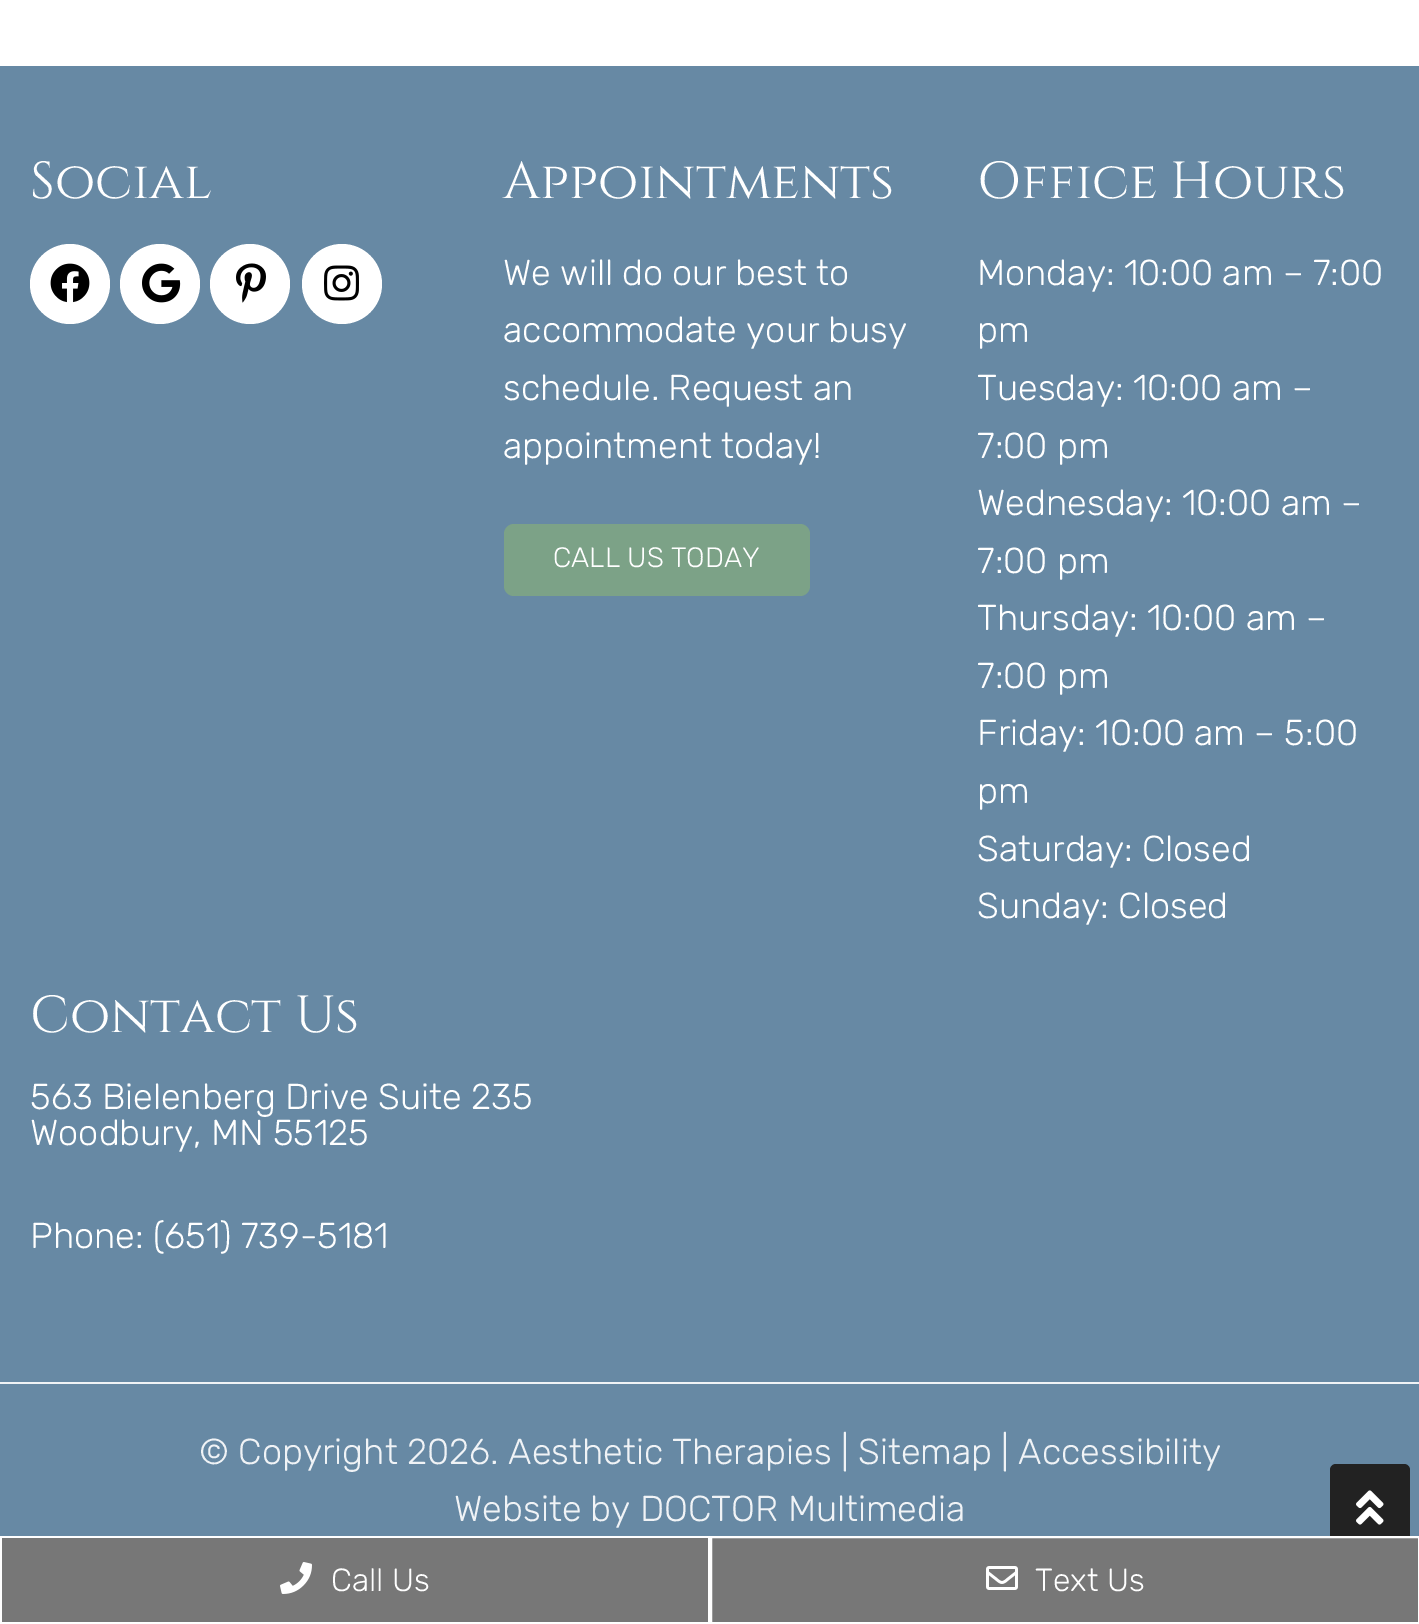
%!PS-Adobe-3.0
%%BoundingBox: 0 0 1419 1624
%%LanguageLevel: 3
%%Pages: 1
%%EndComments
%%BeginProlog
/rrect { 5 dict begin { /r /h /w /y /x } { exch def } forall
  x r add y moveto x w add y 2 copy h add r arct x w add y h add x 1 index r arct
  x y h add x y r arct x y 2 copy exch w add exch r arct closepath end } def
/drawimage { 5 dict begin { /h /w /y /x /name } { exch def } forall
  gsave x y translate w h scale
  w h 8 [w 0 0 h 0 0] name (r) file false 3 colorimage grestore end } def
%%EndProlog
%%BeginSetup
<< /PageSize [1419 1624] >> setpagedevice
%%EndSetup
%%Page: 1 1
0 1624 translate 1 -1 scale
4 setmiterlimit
1 setgray
0 0 1419 1624 rectfill
0.404 0.537 0.643 setrgbcolor
0 66 1419 1470 rectfill
1 setgray
newpath 70 284 40 0 360 arc closepath fill
(images/1.raw) 50 263 40 40 drawimage
newpath 160 284 40 0 360 arc closepath fill
(images/2.raw) 142 263 39 40 drawimage
newpath 250 284 40 0 360 arc closepath fill
(images/3.raw) 236 263 30 40 drawimage
newpath 342 284 40 0 360 arc closepath fill
(images/4.raw) 324 265 35 36 drawimage
0.486 0.635 0.529 setrgbcolor
504 524 306 72 10 rrect fill
0.941 0.953 0.965 setrgbcolor
0 1382 1419 2 rectfill
0.133 setgray
1330 1464 80 80 6 rrect fill
(images/5.raw) 1356 1490 28 35 drawimage
0.467 setgray
2 1538 706 84 rectfill
(images/6.raw) 280 1562 32 32 drawimage
newpath 711 1537 moveto 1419 1537 lineto 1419 1623 lineto 711 1623 lineto closepath gsave fill grestore
1 setgray
2 setlinewidth
stroke
(images/7.raw) 986 1566 32 24 drawimage
/Cinzel-Regular [52 0 0 -52 0 0] selectfont
30 198 moveto (Social) show
503 198 moveto (Appointments) show
/Rubik-Light [36 0 0 -36 0 0] selectfont
503 285 moveto (We will do our best to) show
503 342 moveto (accommodate your busy) show
503 400 moveto (schedule. Request an) show
503 458 moveto (appointment today!) show
/Rubik-Light [28 0 0 -28 0 0] selectfont
553 567 moveto (CALL US TODAY) show
/Cinzel-Regular [52 0 0 -52 0 0] selectfont
977 198 moveto (Office Hours) show
/Rubik-Light [36 0 0 -36 0 0] selectfont
977 285 moveto (Monday: 10:00 am – 7:00) show
977 342 moveto (pm) show
977 400 moveto (Tuesday: 10:00 am –) show
977 458 moveto (7:00 pm) show
977 515 moveto (Wednesday: 10:00 am –) show
977 573 moveto (7:00 pm) show
977 630 moveto (Thursday: 10:00 am –) show
977 688 moveto (7:00 pm) show
977 745 moveto (Friday: 10:00 am – 5:00) show
977 803 moveto (pm) show
977 861 moveto (Saturday: Closed) show
977 918 moveto (Sunday: Closed) show
/Cinzel-Regular [52 0 0 -52 0 0] selectfont
30 1032 moveto (Contact Us) show
/Rubik-Light [36 0 0 -36 0 0] selectfont
30 1109 moveto (563 Bielenberg Drive Suite 235) show
30 1145 moveto (Woodbury, MN 55125) show
30 1248 moveto (Phone: \(651\) 739-5181) show
0.941 0.953 0.965 setrgbcolor
199 1464 moveto (© Copyright 2026. Aesthetic Therapies | Sitemap | Accessibility) show
454 1521 moveto (Website by DOCTOR Multimedia) show
/Rubik-Light [32 0 0 -32 0 0] selectfont
1 setgray
331 1591 moveto (Call Us) show
1035 1591 moveto (Text Us) show
showpage
%%EOF
